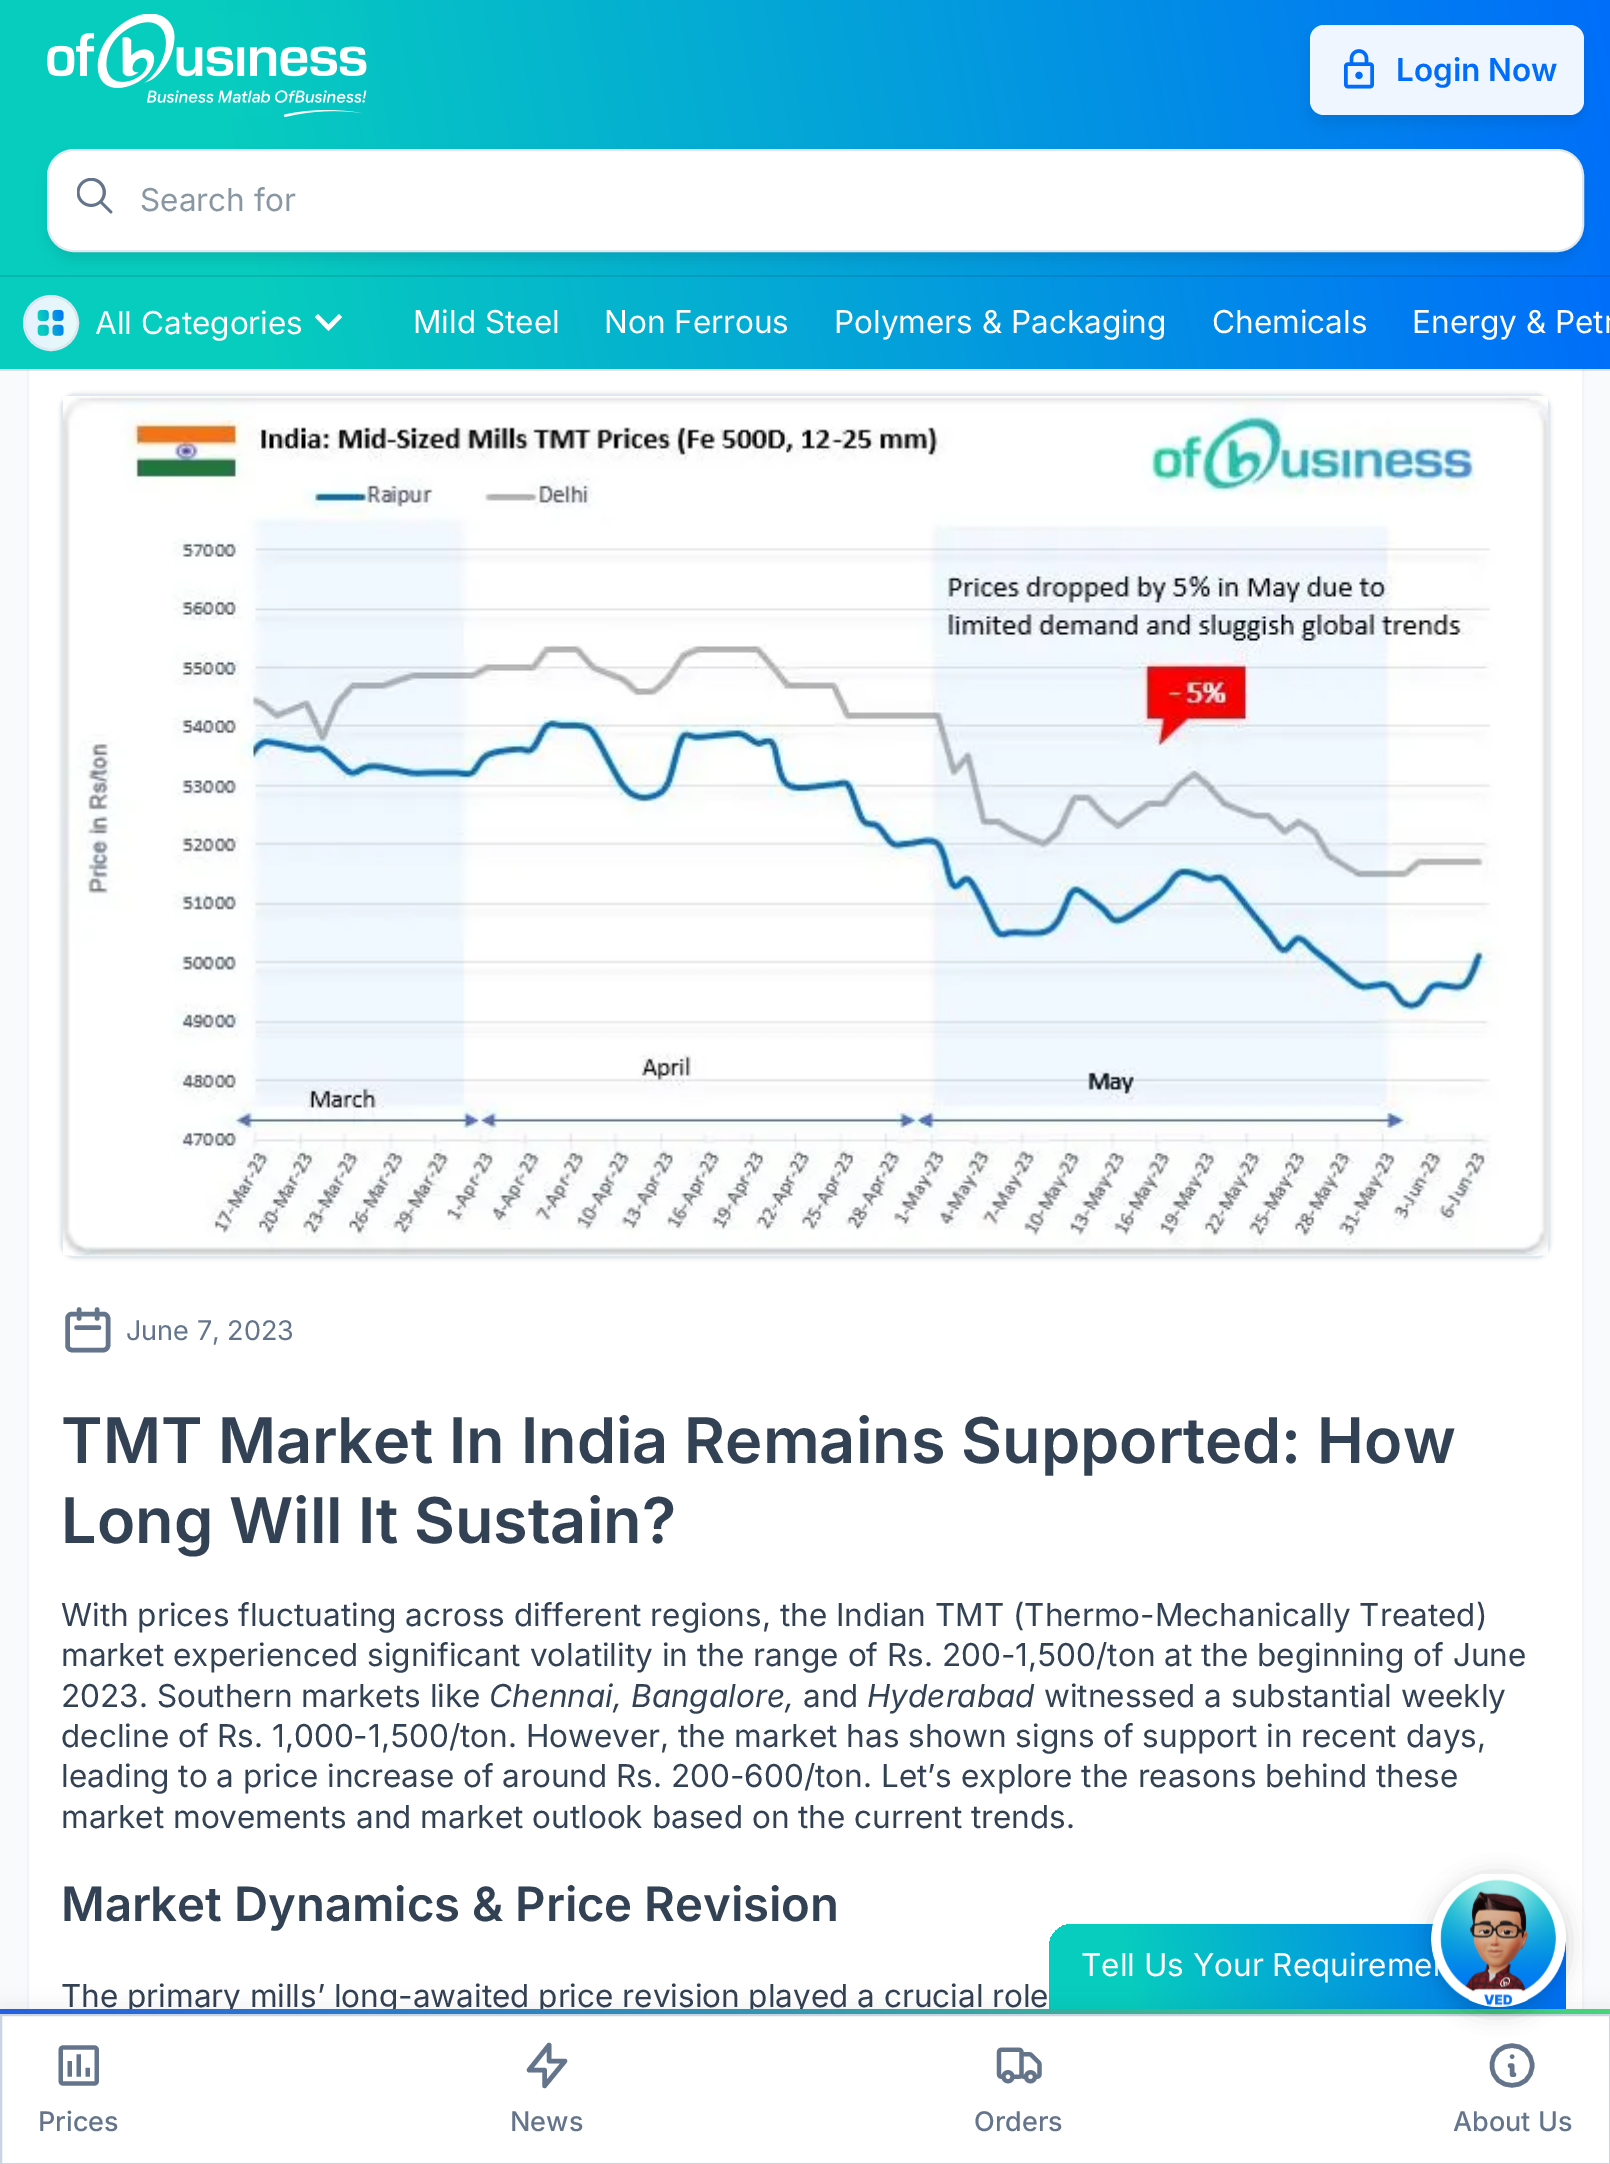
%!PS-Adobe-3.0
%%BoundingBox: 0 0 1610 2164
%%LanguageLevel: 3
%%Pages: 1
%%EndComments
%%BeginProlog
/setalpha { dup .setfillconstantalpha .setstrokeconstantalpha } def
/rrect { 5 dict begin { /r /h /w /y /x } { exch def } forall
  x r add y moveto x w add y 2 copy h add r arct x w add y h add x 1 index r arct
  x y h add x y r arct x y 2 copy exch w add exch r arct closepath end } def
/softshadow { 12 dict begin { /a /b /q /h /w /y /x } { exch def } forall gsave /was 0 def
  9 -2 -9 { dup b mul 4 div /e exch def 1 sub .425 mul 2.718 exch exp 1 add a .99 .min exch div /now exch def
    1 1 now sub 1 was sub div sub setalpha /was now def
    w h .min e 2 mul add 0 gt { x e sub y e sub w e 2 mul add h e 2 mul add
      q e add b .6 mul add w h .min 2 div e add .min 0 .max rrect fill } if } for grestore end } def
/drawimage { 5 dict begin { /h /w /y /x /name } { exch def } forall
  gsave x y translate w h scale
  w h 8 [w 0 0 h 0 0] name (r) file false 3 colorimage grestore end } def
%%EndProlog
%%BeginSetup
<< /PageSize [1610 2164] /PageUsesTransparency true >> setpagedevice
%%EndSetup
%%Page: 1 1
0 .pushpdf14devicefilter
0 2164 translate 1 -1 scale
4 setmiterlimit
0.973 0.98 0.988 setrgbcolor
0 0 1610 2164 rectfill
gsave newpath 0 0 moveto 1610 0 lineto 1610 275 lineto 0 275 lineto closepath clip newpath
<< /ShadingType 2 /ColorSpace /DeviceRGB /Coords [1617 31 -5.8 338] /Extend [true true] /Function << /FunctionType 3 /Domain [0 1] /Functions [<< /FunctionType 2 /Domain [0 1] /C0 [0 0.431 0.98] /C1 [0.027 0.804 0.745] /N 1 >> << /FunctionType 2 /Domain [0 1] /C0 [0.027 0.804 0.745] /C1 [0.027 0.804 0.745] /N 1 >>] /Bounds [0.84] /Encode [0 1 0 1] >> >> shfill grestore
(images/1.raw) 47 14 320 103 drawimage
0 setgray
1312 36 270 86 11 7 0.1 softshadow
0.937 0.965 1 setrgbcolor
1310 25 274 90 14 rrect fill
(images/2.raw) 1344 49 30 40 drawimage
0 setgray
50 160 1532 99 25 7 0.1 softshadow
1 setgray
48 150 1535 101 26 rrect gsave fill grestore
0.886 0.91 0.941 setrgbcolor
2 setlinewidth
stroke
(images/5.raw) 77 178 36 36 drawimage
1 setgray
29 369 1553 1640 rectfill
0.945 0.961 0.976 setrgbcolor
28 303 1555 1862 rectstroke
gsave newpath 0 275 moveto 1610 275 lineto 1610 369 lineto 0 369 lineto closepath clip newpath
<< /ShadingType 2 /ColorSpace /DeviceRGB /Coords [1591 169 20 474] /Extend [true true] /Function << /FunctionType 3 /Domain [0 1] /Functions [<< /FunctionType 2 /Domain [0 1] /C0 [0 0.431 0.98] /C1 [0.027 0.804 0.745] /N 1 >> << /FunctionType 2 /Domain [0 1] /C0 [0.027 0.804 0.745] /C1 [0.027 0.804 0.745] /N 1 >>] /Bounds [0.84] /Encode [0 1 0 1] >> >> shfill grestore
0.1 setalpha
0 setgray
0 275 1610 2 rectfill
1 setalpha
1 setgray
newpath 51 323 27 0 360 arc closepath gsave fill grestore
0.886 0.91 0.941 setrgbcolor
stroke
0.1 setalpha
gsave newpath 51 323 26 0 360 arc closepath clip newpath
<< /ShadingType 2 /ColorSpace /DeviceRGB /Coords [25 323 77 323] /Extend [true true] /Function << /FunctionType 2 /Domain [0 1] /C0 [0 0.431 0.98] /C1 [0.027 0.804 0.745] /N 1 >> >> shfill grestore
1 setalpha
(images/6.raw) 37 309 27 27 drawimage
1 setgray
newpath 339 314 moveto 328.5 324.5 lineto 318 314 lineto 315 317 lineto 328.5 331 lineto 342 317 lineto closepath fill
0.1 setalpha
0 setgray
0 369 1610 2 rectfill
1 setalpha
0.063 0.094 0.157 setrgbcolor
61 394 1489 864 14 2 0.06 softshadow
61 394 1489 864 14 2 0.1 softshadow
0.886 0.91 0.941 setrgbcolor
62 395 1487 862 13 rrect stroke
(images/7.raw) 63 396 1485 860 drawimage
0.392 0.455 0.545 setrgbcolor
4.5 setlinewidth
1 setlinecap
1 setlinejoin
newpath 79 1318.5 moveto 79 1309.5 lineto 97 1318.5 moveto 97 1309.5 lineto 76.5 1327.5 moveto 99 1327.5 lineto 72 1350 moveto 103.5 1350 lineto 106 1350 108 1348 108 1345.5 curveto 108 1318.5 lineto 108 1316 106 1314 103.5 1314 curveto 72 1314 lineto 69.5 1314 67.5 1316 67.5 1318.5 curveto 67.5 1345.5 lineto 67.5 1348 69.5 1350 72 1350 curveto closepath stroke
gsave newpath 1072 1924 moveto 1543 1924 lineto 1555.5 1924 1566 1934.5 1566 1947 curveto 1566 2014 lineto 1049 2014 lineto 1049 1947 lineto 1049 1934.5 1059.5 1924 1072 1924 curveto closepath clip newpath
<< /ShadingType 2 /ColorSpace /DeviceRGB /Coords [1565 1920 1049 2018] /Extend [true true] /Function << /FunctionType 3 /Domain [0 1] /Functions [<< /FunctionType 2 /Domain [0 1] /C0 [0 0.431 0.98] /C1 [0.027 0.804 0.745] /N 1 >> << /FunctionType 2 /Domain [0 1] /C0 [0.027 0.804 0.745] /C1 [0.027 0.804 0.745] /N 1 >>] /Bounds [0.84] /Encode [0 1 0 1] >> >> shfill grestore
/Inter-SemiBold [31.5 0 0 -31.5 0 0] selectfont
0 0.431 0.98 setrgbcolor
1396 81 moveto (Login Now) show
/Inter-Regular [31.5 0 0 -31.5 0 0] selectfont
0.533 0.592 0.635 setrgbcolor
140 211 moveto (Search for) show
1 setgray
95 334 moveto (All Categories) show
413 333 moveto (Mild Steel) show
604 333 moveto (Non Ferrous) show
834 333 moveto (Polymers & Packaging) show
1212 333 moveto (Chemicals) show
1412 333 moveto (Energy & Petr) show
/Inter-Regular [27 0 0 -27 0 0] selectfont
0.392 0.455 0.545 setrgbcolor
126 1340 moveto (June 7, 2023) show
/Inter-SemiBold [63 0 0 -63 0 0] selectfont
0.2 0.255 0.333 setrgbcolor
61 1463 moveto (TMT Market In India Remains Supported: How) show
61 1543 moveto (Long Will It Sustain?) show
/Inter-Regular [31.5 0 0 -31.5 0 0] selectfont
61 1626 moveto (With prices fluctuating across different regions, the Indian TMT \(Thermo-Mechanically Treated\)) show
61 1666 moveto (market experienced significant volatility in the range of Rs. 200-1,500/ton at the beginning of June) show
61 1707 moveto (2023. Southern markets like) show
/Inter-Italic [31.5 0 0 -31.5 0 0] selectfont
489 1707 moveto (Chennai, Bangalore,) show
/Inter-Regular [31.5 0 0 -31.5 0 0] selectfont
803 1707 moveto (and) show
/Inter-Italic [31.5 0 0 -31.5 0 0] selectfont
867 1707 moveto (Hyderabad) show
/Inter-Regular [31.5 0 0 -31.5 0 0] selectfont
1044 1707 moveto (witnessed a substantial weekly) show
61 1747 moveto (decline of Rs. 1,000-1,500/ton. However, the market has shown signs of support in recent days,) show
61 1787 moveto (leading to a price increase of around Rs. 200-600/ton. Let’s explore the reasons behind these) show
61 1828 moveto (market movements and market outlook based on the current trends.) show
/Inter-SemiBold [47.25 0 0 -47.25 0 0] selectfont
61 1921 moveto (Market Dynamics & Price Revision) show
/Inter-Regular [31.5 0 0 -31.5 0 0] selectfont
61 2007 moveto (The primary mills’ long-awaited price revision played a crucial role) show
1 setgray
1081 1976 moveto (Tell Us Your Requireme) show
gsave newpath 0 2009 moveto 1610 2009 lineto 1610 2014 lineto 0 2014 lineto closepath clip newpath
<< /ShadingType 2 /ColorSpace /DeviceRGB /Coords [1.2 2046 1610 1979] /Extend [true true] /Function << /FunctionType 2 /Domain [0 1] /C0 [0.145 0.388 0.922] /C1 [0.29 0.871 0.502] /N 1 >> >> shfill grestore
0 setgray
0 2005 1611 151 0 11 0.05 softshadow
1 setgray
newpath 1 2015 moveto 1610 2015 lineto 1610 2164 lineto 1 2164 lineto closepath gsave fill grestore
0.796 0.835 0.882 setrgbcolor
2 setlinewidth
0 setlinecap
0 setlinejoin
stroke
0.392 0.455 0.545 setrgbcolor
4.5 setlinewidth
1 setlinecap
1 setlinejoin
newpath 1514 2074.5 moveto 1512 2074.5 lineto 1512 2065.5 lineto 1510 2065.5 lineto 1512 2056.5 moveto 1512 2056.5 lineto 1532 2065.5 moveto 1532 2092 1492 2092 1492 2065.5 curveto 1492 2039 1532 2039 1532 2065.5 curveto closepath stroke
0 setgray
1431 1877 135 135 67.5 11 0.2 softshadow
(images/8.raw) 1431 1874 135 133 drawimage
/Inter-Medium [27 0 0 -27 0 0] selectfont
0.392 0.455 0.545 setrgbcolor
1453 2131 moveto (About Us) show
(images/4.raw) 996 2047 46 37 drawimage
974 2131 moveto (Orders) show
newpath 549 2061 moveto 549 2045 lineto 529 2070 lineto 544.5 2070 lineto 544.5 2086 lineto 565 2061 lineto closepath stroke
510 2131 moveto (News) show
(images/3.raw) 58 2045 41 41 drawimage
38 2131 moveto (Prices) show
.poppdf14devicefilter showpage
%%EOF
